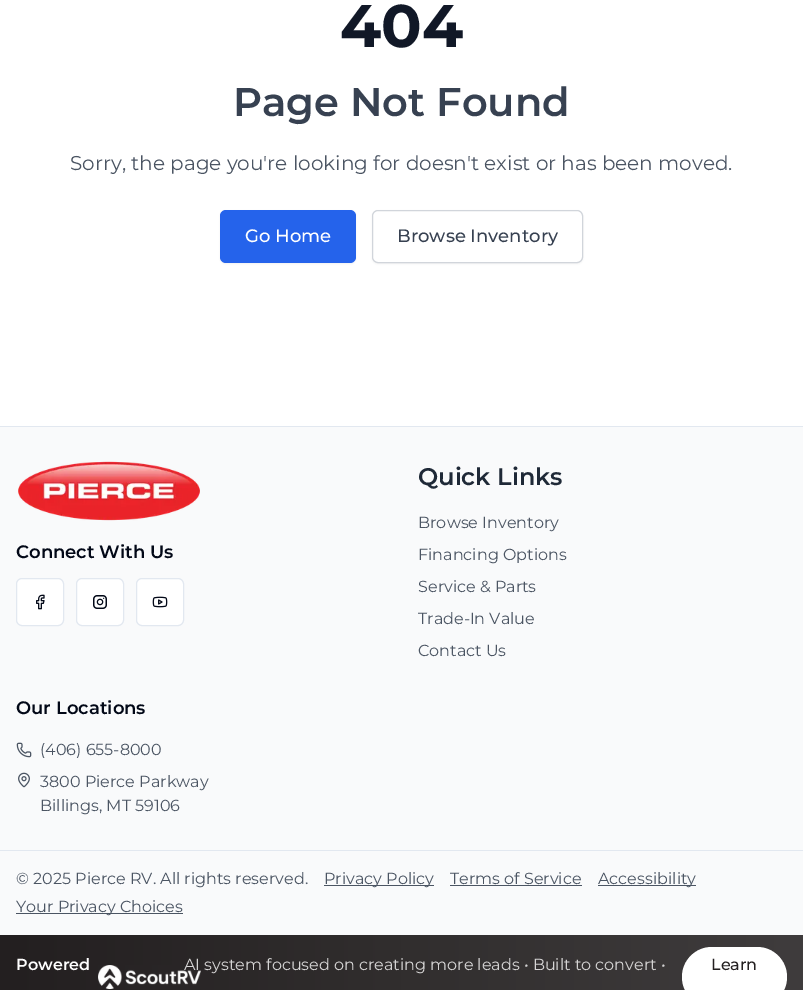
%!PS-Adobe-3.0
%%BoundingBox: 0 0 803 990
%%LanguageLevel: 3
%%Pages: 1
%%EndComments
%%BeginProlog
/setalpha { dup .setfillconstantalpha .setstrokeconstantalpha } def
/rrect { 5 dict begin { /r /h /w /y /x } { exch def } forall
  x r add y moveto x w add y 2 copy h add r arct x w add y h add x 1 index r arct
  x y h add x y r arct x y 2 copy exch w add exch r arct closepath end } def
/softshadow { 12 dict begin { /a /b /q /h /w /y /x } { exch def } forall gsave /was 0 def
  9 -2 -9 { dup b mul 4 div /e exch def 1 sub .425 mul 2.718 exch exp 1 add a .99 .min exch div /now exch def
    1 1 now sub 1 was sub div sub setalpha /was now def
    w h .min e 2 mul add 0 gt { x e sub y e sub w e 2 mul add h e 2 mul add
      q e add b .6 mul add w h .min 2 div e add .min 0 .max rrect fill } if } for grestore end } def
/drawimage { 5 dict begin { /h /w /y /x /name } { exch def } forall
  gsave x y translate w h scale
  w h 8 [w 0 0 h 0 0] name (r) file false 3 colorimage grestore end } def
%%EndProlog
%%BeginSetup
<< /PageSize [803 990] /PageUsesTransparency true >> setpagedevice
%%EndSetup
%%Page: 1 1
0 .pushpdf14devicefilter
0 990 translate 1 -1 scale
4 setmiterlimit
1 setgray
0 0 803 990 rectfill
0 setgray
220 211 136 53 6 1 0.05 softshadow
0.145 0.388 0.922 setrgbcolor
220 210 136 53 6 rrect fill
0 setgray
372 211 211 53 6 1 0.05 softshadow
1 setgray
372.5 210.5 210 52 5.5 rrect gsave fill grestore
0.82 0.835 0.859 setrgbcolor
stroke
0.976 0.98 0.984 setrgbcolor
0 427 803 508 rectfill
0.886 0.91 0.941 setrgbcolor
0 426 803 1 rectfill
(images/1.raw) 18 461 182 60 drawimage
1 setgray
16.5 578.5 47 47 5.5 rrect gsave fill grestore
0.886 0.91 0.941 setrgbcolor
stroke
(images/2.raw) 36 594 9 16 drawimage
1 setgray
76.5 578.5 47 47 5.5 rrect gsave fill grestore
0.886 0.91 0.941 setrgbcolor
stroke
(images/3.raw) 93 595 14 14 drawimage
1 setgray
136.5 578.5 47 47 5.5 rrect gsave fill grestore
0.886 0.91 0.941 setrgbcolor
stroke
(images/4.raw) 152 596 16 12 drawimage
(images/5.raw) 16 742 16 16 drawimage
(images/6.raw) 18 772 12 16 drawimage
0 850 803 1 rectfill
0.294 0.333 0.388 setrgbcolor
324 885 110 1 rectfill
450 885 132 1 rectfill
598 885 98 1 rectfill
16 913 167 1 rectfill
gsave newpath 0 935 moveto 803 935 lineto 803 990 lineto 0 990 lineto closepath clip newpath
<< /ShadingType 2 /ColorSpace /DeviceRGB /Coords [0 977 803 977] /Extend [true true] /Function << /FunctionType 2 /Domain [0 1] /C0 [0.137 0.122 0.125] /C1 [0.247 0.235 0.239] /N 1 >> >> shfill grestore
(images/7.raw) 98 965 103 24 drawimage
1 setgray
682 947 105 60 30 rrect fill
/Montserrat-Bold [60 0 0 -60 0 0] selectfont
0.067 0.094 0.153 setrgbcolor
340 47 moveto (404) show
/Montserrat-SemiBold [40 0 0 -40 0 0] selectfont
0.216 0.255 0.318 setrgbcolor
233 116 moveto (Page Not Found) show
/Montserrat-Regular [20 0 0 -20 0 0] selectfont
0.294 0.333 0.388 setrgbcolor
70 170 moveto (Sorry, the page you're looking for doesn't exist or has been moved.) show
/Montserrat-Medium [18 0 0 -18 0 0] selectfont
1 setgray
245 242 moveto (Go Home) show
0.216 0.255 0.318 setrgbcolor
397 242 moveto (Browse Inventory) show
/Montserrat-SemiBold [18 0 0 -18 0 0] selectfont
0.008 0.031 0.09 setrgbcolor
16 558 moveto (Connect With Us) show
/Montserrat-SemiBold [24 0 0 -24 0 0] selectfont
0.122 0.161 0.216 setrgbcolor
418 485 moveto (Quick Links) show
/Montserrat-Regular [16 0 0 -16 0 0] selectfont
0.294 0.333 0.388 setrgbcolor
418 528 moveto (Browse Inventory) show
418 560 moveto (Financing Options) show
418 592 moveto (Service & Parts) show
418 624 moveto (Trade-In Value) show
418 656 moveto (Contact Us) show
/Montserrat-SemiBold [18 0 0 -18 0 0] selectfont
0.008 0.031 0.09 setrgbcolor
16 714 moveto (Our Locations) show
/Montserrat-Regular [16 0 0 -16 0 0] selectfont
0.294 0.333 0.388 setrgbcolor
40 755 moveto (\(406\) 655-8000) show
40 787 moveto (3800 Pierce Parkway) show
40 811 moveto (Billings, MT 59106) show
16 884 moveto (© 2025 Pierce RV. All rights reserved.) show
324 884 moveto (Privacy Policy) show
450 884 moveto (Terms of Service) show
598 884 moveto (Accessibility) show
16 912 moveto (Your Privacy Choices) show
/Montserrat-SemiBold [16 0 0 -16 0 0] selectfont
1 setgray
16 970 moveto (Powered) show
/Montserrat-Regular [16 0 0 -16 0 0] selectfont
0.839 0.835 0.835 setrgbcolor
184 970 moveto (AI system focused on creating more leads • Built to convert •) show
/Montserrat-Medium [16 0 0 -16 0 0] selectfont
0.137 0.122 0.125 setrgbcolor
711 970 moveto (Learn) show
.poppdf14devicefilter showpage
%%EOF
